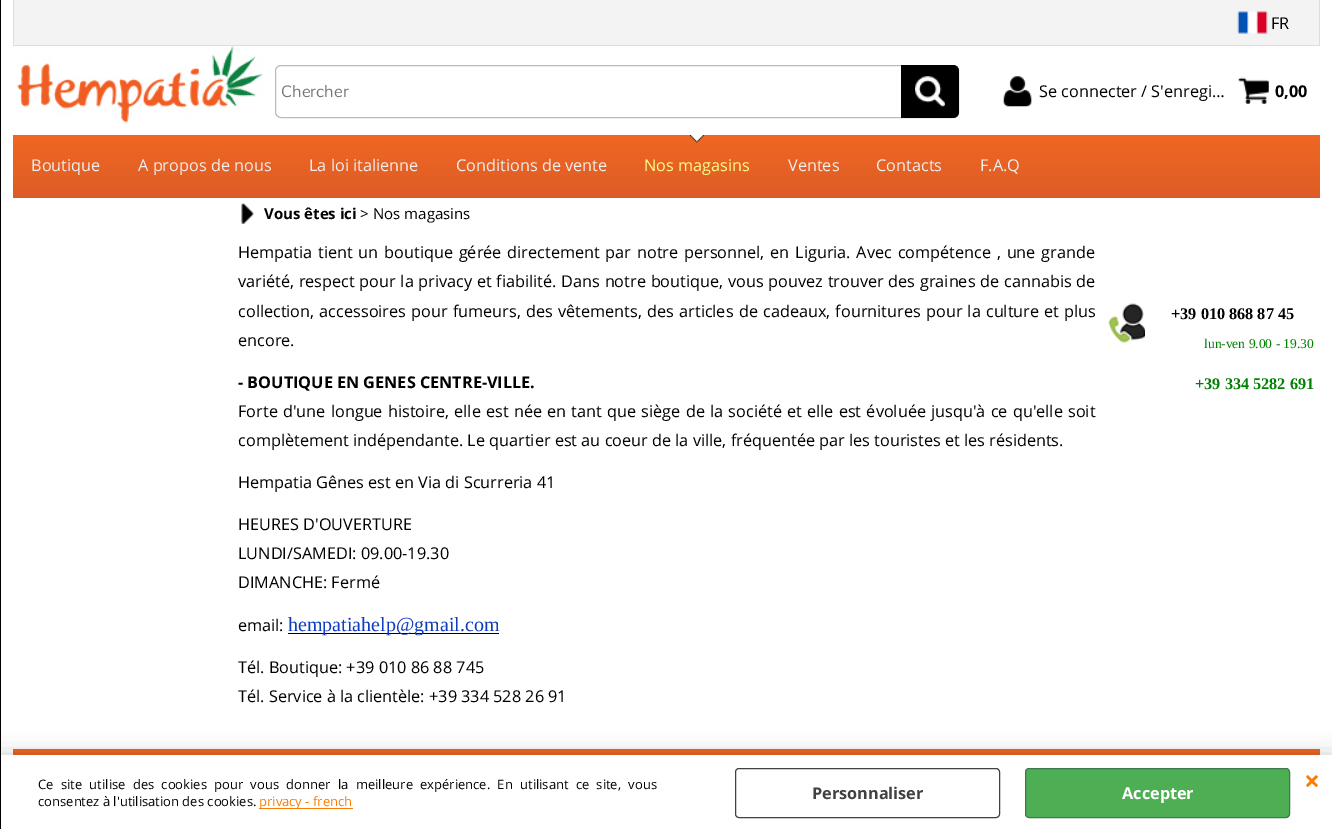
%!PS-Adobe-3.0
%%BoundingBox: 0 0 1332 829
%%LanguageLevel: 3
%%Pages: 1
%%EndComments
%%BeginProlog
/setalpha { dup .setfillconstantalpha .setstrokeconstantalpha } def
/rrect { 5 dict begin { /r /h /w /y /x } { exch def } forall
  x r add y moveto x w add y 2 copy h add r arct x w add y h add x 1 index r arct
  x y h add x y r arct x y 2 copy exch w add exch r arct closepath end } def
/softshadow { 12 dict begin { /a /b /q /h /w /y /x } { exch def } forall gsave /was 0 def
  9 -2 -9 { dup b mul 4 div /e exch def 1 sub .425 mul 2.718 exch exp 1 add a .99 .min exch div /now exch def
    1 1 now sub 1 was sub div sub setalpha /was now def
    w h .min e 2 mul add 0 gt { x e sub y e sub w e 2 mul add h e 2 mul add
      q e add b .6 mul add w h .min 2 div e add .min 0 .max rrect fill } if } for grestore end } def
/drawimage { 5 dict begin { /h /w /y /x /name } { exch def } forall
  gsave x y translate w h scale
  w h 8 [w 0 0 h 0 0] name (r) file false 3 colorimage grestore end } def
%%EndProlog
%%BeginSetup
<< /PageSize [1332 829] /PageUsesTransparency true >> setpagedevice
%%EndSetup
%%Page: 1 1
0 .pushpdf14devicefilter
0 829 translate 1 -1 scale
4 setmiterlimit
1 setgray
0 0 1332 829 rectfill
gsave newpath 13 749 moveto 1320 749 lineto 1320 755 lineto 13 755 lineto closepath clip newpath
<< /ShadingType 2 /ColorSpace /DeviceRGB /Coords [666 749 666 783] /Extend [true true] /Function << /FunctionType 2 /Domain [0 1] /C0 [0.941 0.404 0.133] /C1 [0.867 0.361 0.149] /N 1 >> >> shfill grestore
0 setgray
0 755 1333 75 0 11 0.2 softshadow
0 0 1 829 rectfill
0.953 setgray
14 0 1305 45 rectfill
0.867 setgray
1319 0 1 46 rectfill
13 45 1307 1 rectfill
13 0 1 46 rectfill
(images/1.raw) 1237 11 31 23 drawimage
(images/2.raw) 15 46 248 77 drawimage
0.733 setgray
275.5 65.5 683 52 5.5 rrect stroke
0 setgray
newpath 901 65 moveto 953 65 lineto 956.5 65 959 67.5 959 71 curveto 959 112 lineto 959 115.5 956.5 118 953 118 curveto 901 118 lineto closepath fill
(images/3.raw) 915 76 30 31 drawimage
(images/4.raw) 1003 76 29 31 drawimage
(images/5.raw) 1238 77 31 28 drawimage
gsave newpath 13 135 moveto 1320 135 lineto 1320 198 lineto 13 198 lineto closepath clip newpath
<< /ShadingType 2 /ColorSpace /DeviceRGB /Coords [666 135 666 198] /Extend [true true] /Function << /FunctionType 2 /Domain [0 1] /C0 [0.941 0.404 0.133] /C1 [0.867 0.361 0.149] /N 1 >> >> shfill grestore
(images/6.raw) 690 135 14 8 drawimage
(images/7.raw) 241 203 13 21 drawimage
288 633 211 1 rectfill
(images/8.raw) 1108 303 37 40 drawimage
1 setgray
1 755 1331 74 rectfill
0.976 0.486 0 setrgbcolor
259 808 94 1 rectfill
0.259 0.255 0.255 setrgbcolor
735.5 768.5 264 49 3.5 rrect stroke
0.306 0.682 0.329 setrgbcolor
1025.5 768.5 264 49 3.5 rrect gsave fill grestore
0.247 0.467 0.333 setrgbcolor
stroke
/OpenSans-Regular [16.25 0 0 -16.25 0 0] selectfont
0 setgray
1271 29 moveto (FR) show
/Muli-Regular [16.25 0 0 -16.25 0 0] selectfont
0.459 setgray
281 97 moveto (Chercher) show
/OpenSans-Regular [16.25 0 0 -16.25 0 0] selectfont
0 setgray
1039 97 moveto (Se connecter / S'enregi…) show
/OpenSans-Bold [16.25 0 0 -16.25 0 0] selectfont
1275 97 moveto (0,00) show
/OpenSans-Regular [16.25 0 0 -16.25 0 0] selectfont
0.933 setgray
31 171 moveto (Boutique) show
138 171 moveto (A propos de nous) show
309 171 moveto (La loi italienne) show
456 171 moveto (Conditions de vente) show
0.984 0.996 0.537 setrgbcolor
644 171 moveto (Nos magasins) show
0.933 setgray
788 171 moveto (Ventes) show
876 171 moveto (Contacts) show
980 171 moveto (F.A.Q) show
/OpenSans-Bold [15 0 0 -15 0 0] selectfont
0 setgray
264 219 moveto (Vous êtes ici) show
/OpenSans-Regular [15 0 0 -15 0 0] selectfont
360 219 moveto (>) show
373 219 moveto (Nos magasins) show
/OpenSans-Regular [16.25 0 0 -16.25 0 0] selectfont
238 258 moveto 1.6 0 32 (Hempatia tient un boutique gérée directement par notre personnel, en Liguria. Avec compétence , une grande) widthshow
238 287 moveto 0.5 0 32 (variété, respect pour la privacy et fiabilité. Dans notre boutique, vous pouvez trouver des graines de cannabis de) widthshow
238 317 moveto 1 0 32 (collection, accessoires pour fumeurs, des vêtements, des articles de cadeaux, fournitures pour la culture et plus) widthshow
238 346 moveto (encore.) show
/OpenSans-Bold [16.25 0 0 -16.25 0 0] selectfont
238 388 moveto (- BOUTIQUE EN GENES CENTRE-VILLE.) show
/OpenSans-Regular [16.25 0 0 -16.25 0 0] selectfont
238 417 moveto 1 0 32 (Forte d'une longue histoire, elle est née en tant que siège de la société et elle est évoluée jusqu'à ce qu'elle soit) widthshow
238 446 moveto (complètement indépendante. Le quartier est au coeur de la ville, fréquentée par les touristes et les résidents.) show
238 488 moveto (Hempatia Gênes est en Via di Scurreria 41) show
238 530 moveto (HEURES D'OUVERTURE) show
238 559 moveto (LUNDI/SAMEDI: 09.00-19.30) show
238 588 moveto (DIMANCHE: Fermé) show
238 631 moveto (email:) show
/LiberationSerif-Regular [20 0 0 -20 0 0] selectfont
0.063 0.235 0.753 setrgbcolor
288 631 moveto (hempatiahelp@gmail.com) show
/OpenSans-Regular [16.25 0 0 -16.25 0 0] selectfont
0 setgray
238 673 moveto (Tél. Boutique: +39 010 86 88 745) show
238 702 moveto (Tél. Service à la clientèle: +39 334 528 26 91) show
/LiberationSerif-Bold [16.25 0 0 -16.25 0 0] selectfont
1171 319 moveto (+39 010 868 87 45) show
/LiberationSerif-Regular [13.5 0 0 -13.5 0 0] selectfont
0 0.502 0 setrgbcolor
1204 348 moveto (lun-ven 9.00 - 19.30) show
/LiberationSerif-Bold [16.25 0 0 -16.25 0 0] selectfont
1195 389 moveto (+39 334 5282 691) show
/OpenSans-Regular [13 0 0 -13 0 0] selectfont
0 setgray
38 789 moveto 3.9 0 32 (Ce site utilise des cookies pour vous donner la meilleure expérience. En utilisant ce site, vous) widthshow
38 806 moveto (consentez à l'utilisation des cookies.) show
0.976 0.486 0 setrgbcolor
259 806 moveto (privacy - french) show
/OpenSans-Bold [16.25 0 0 -16.25 0 0] selectfont
0.259 0.255 0.255 setrgbcolor
812 799 moveto (Personnaliser) show
1 setgray
1122 799 moveto (Accepter) show
/OpenSans-Bold [28 0 0 -28 0 0] selectfont
0.976 0.486 0 setrgbcolor
1304 791 moveto (×) show
.poppdf14devicefilter showpage
%%EOF
